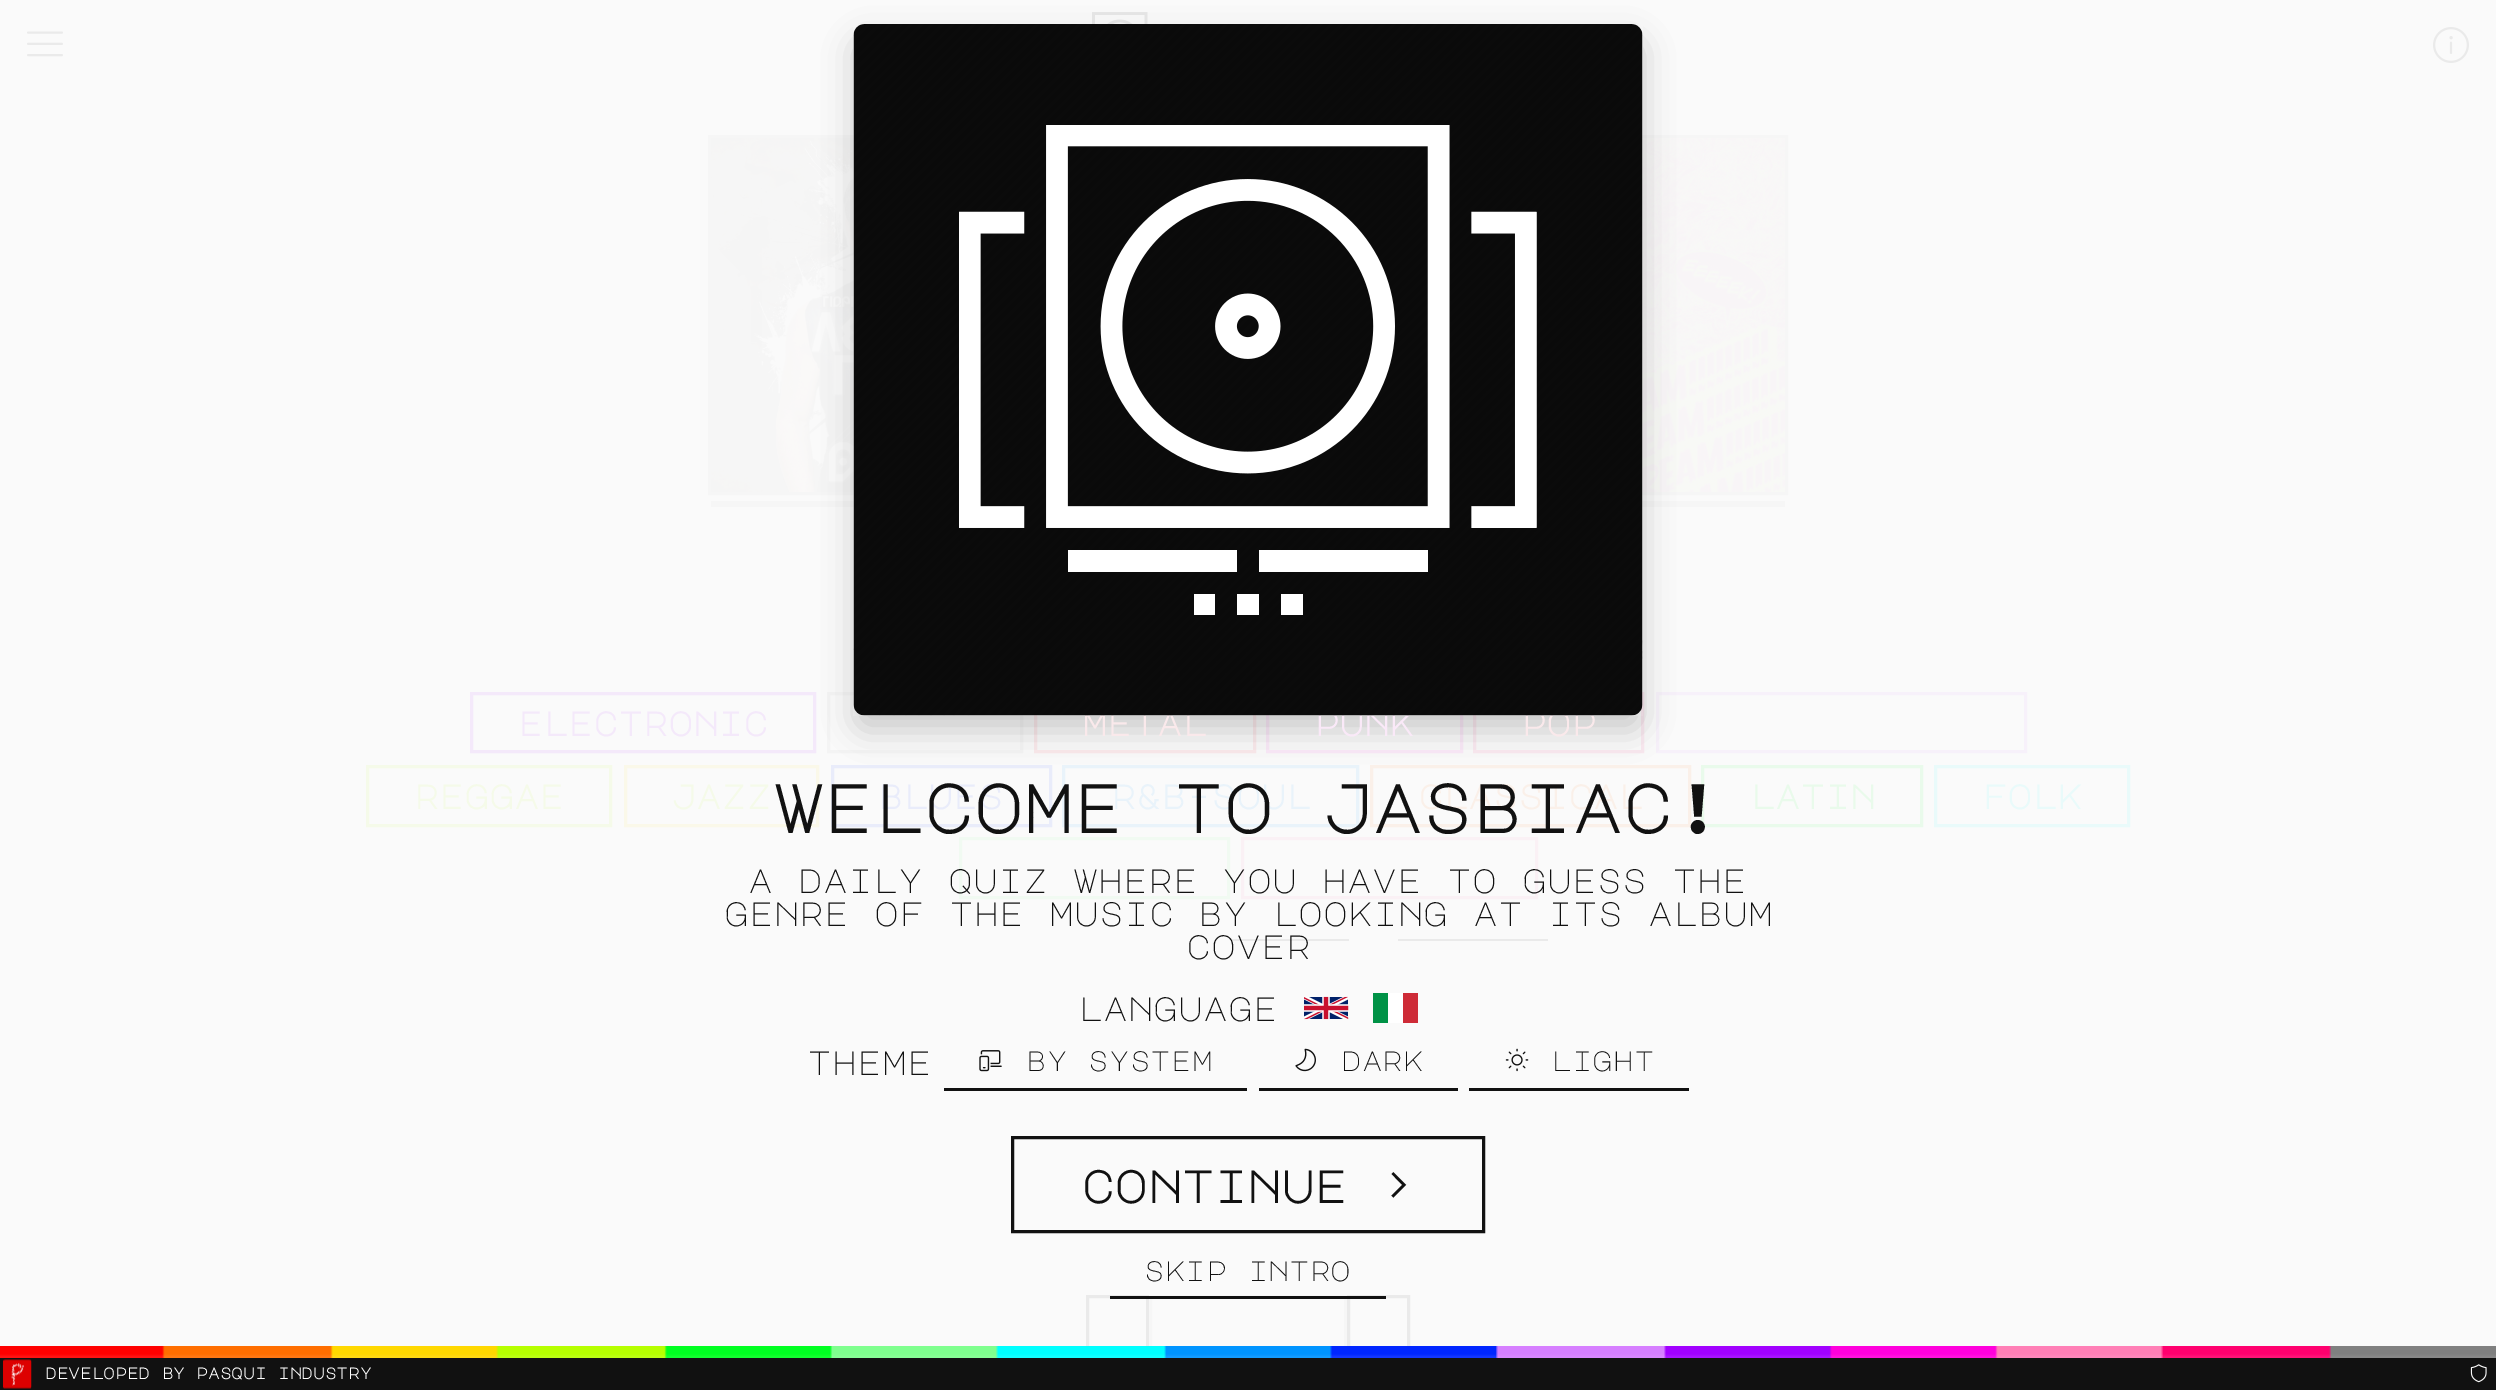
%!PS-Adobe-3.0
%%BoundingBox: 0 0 2496 1390
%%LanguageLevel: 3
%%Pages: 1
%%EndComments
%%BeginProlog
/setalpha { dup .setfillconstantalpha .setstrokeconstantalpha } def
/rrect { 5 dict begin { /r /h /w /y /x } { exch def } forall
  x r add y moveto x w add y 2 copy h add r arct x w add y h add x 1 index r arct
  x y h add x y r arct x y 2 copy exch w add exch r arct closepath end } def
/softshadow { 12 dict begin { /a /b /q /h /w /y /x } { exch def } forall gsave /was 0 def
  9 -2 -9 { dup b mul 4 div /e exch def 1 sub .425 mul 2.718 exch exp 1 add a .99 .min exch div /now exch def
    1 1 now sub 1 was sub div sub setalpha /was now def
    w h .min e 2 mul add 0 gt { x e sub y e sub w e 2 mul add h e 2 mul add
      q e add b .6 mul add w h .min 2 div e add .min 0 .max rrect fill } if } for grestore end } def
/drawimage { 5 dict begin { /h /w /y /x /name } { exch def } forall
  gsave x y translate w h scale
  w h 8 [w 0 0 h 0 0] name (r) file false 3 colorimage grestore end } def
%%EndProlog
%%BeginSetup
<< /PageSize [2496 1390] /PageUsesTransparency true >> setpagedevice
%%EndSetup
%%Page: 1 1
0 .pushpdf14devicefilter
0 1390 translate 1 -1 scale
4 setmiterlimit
0.98 setgray
0 0 2496 1390 rectfill
(images/1.raw) 1092 12 56 12 drawimage
(images/2.raw) 27 31 36 26 drawimage
(images/3.raw) 2433 27 36 36 drawimage
0.965 setgray
3 setlinewidth
709.5 136.5 357 357 rectstroke
(images/4.raw) 711 138 143 354 drawimage
711 501 143 6 rectfill
1429.5 136.5 357 357 rectstroke
(images/5.raw) 1642 138 143 354 drawimage
1642 501 143 6 rectfill
0.957 0.914 0.98 setrgbcolor
471.5 693.5 343 58 rectstroke
0.957 setgray
828.5 693.5 193 58 rectstroke
0.98 0.914 0.922 setrgbcolor
1035.5 693.5 219 58 rectstroke
0.98 0.914 0.973 setrgbcolor
1267.5 693.5 194 58 rectstroke
0.98 0.914 0.941 setrgbcolor
1474.5 693.5 168 58 rectstroke
0.969 0.945 0.98 setrgbcolor
1657.5 693.5 368 58 rectstroke
0.961 0.98 0.914 setrgbcolor
367.5 766.5 243 59 rectstroke
0.98 0.973 0.914 setrgbcolor
625.5 766.5 192 59 rectstroke
0.914 0.925 0.98 setrgbcolor
832.5 766.5 218 59 rectstroke
0.914 0.953 0.98 setrgbcolor
1063.5 766.5 294 59 rectstroke
0.98 0.941 0.914 setrgbcolor
1371.5 766.5 318 59 rectstroke
0.914 0.98 0.922 setrgbcolor
1702.5 766.5 219 59 rectstroke
0.914 0.98 0.98 setrgbcolor
1935.5 766.5 193 59 rectstroke
0.945 0.98 0.949 setrgbcolor
960.5 838.5 268 59 rectstroke
0.98 0.945 0.961 setrgbcolor
1242.5 838.5 294 59 rectstroke
0.918 setgray
1232 939 117 2 rectfill
1398 939 150 2 rectfill
1087.5 1296.5 60 54 rectstroke
0.965 setgray
1150.5 1296.5 195 54 rectstroke
0.918 setgray
1348.5 1296.5 60 54 rectstroke
0.067 setgray
854 39 789 692 12 15 0.2 softshadow
(images/8.raw) 1304 996 45 24 drawimage
0 0.573 0.275 setrgbcolor
1373 993 15 30 rectfill
1 setgray
1388 993 15 30 rectfill
0.808 0.169 0.216 setrgbcolor
1403 993 15 30 rectfill
0.067 setgray
944 1088 303 3 rectfill
(images/9.raw) 979 1050 23 22 drawimage
1259 1088 199 3 rectfill
(images/10.raw) 1295 1048 21 24 drawimage
1469 1088 220 3 rectfill
(images/11.raw) 1505 1048 24 24 drawimage
1012.5 1137.5 471 94 rectstroke
1110 1296 276 3 rectfill
(images/12.raw) 0 1346 2496 12 drawimage
0 1358 2496 32 rectfill
(images/13.raw) 3 1359 29 30 drawimage
(images/14.raw) 2470 1364 17 19 drawimage
/MajorMonoDisplay-Bold [33.75 0 0 -33.75 0 0] selectfont
0.957 0.914 0.98 setrgbcolor
518 736 moveto (electronic) show
0.98 0.914 0.922 setrgbcolor
1082 736 moveto (metal) show
0.98 0.914 0.973 setrgbcolor
1314 736 moveto (punk) show
0.98 0.914 0.922 setrgbcolor
1521 736 moveto (pop) show
0.961 0.98 0.914 setrgbcolor
414 809 moveto (reggae) show
671 809 moveto (jazz) show
0.914 0.925 0.98 setrgbcolor
878 809 moveto (blues) show
0.914 0.953 0.98 setrgbcolor
1111 809 moveto (r&b+soul) show
0.98 0.941 0.914 setrgbcolor
1418 809 moveto (classical) show
0.914 0.98 0.922 setrgbcolor
1750 809 moveto (latin) show
0.914 0.98 0.98 setrgbcolor
1982 809 moveto (folk) show
(images/6.raw) 853 24 790 692 drawimage
(images/7.raw) 959 125 578 490 drawimage
/MajorMonoDisplay-Bold [67.5 0 0 -67.5 0 0] selectfont
0.067 setgray
773 833 moveto (welcome to jasbiac!) show
/MajorMonoDisplay-Regular [33.75 0 0 -33.75 0 0] selectfont
748 893 moveto (a daily quiz where you have to guess the) show
724 926 moveto (genre of the music by looking at its album) show
1186 959 moveto (cover) show
1078 1021 moveto (language) show
807 1075 moveto (theme) show
/MajorMonoDisplay-Regular [28 0 0 -28 0 0] selectfont
1026 1071 moveto (by system) show
1341 1071 moveto (dark) show
1551 1071 moveto (light) show
/MajorMonoDisplay-Bold [45 0 0 -45 0 0] selectfont
1081 1203 moveto (continue) show
1381 1201 moveto (>) show
/MajorMonoDisplay-Regular [28 0 0 -28 0 0] selectfont
1144 1281 moveto (skip intro) show
/MajorMonoDisplay-Bold [15.75 0 0 -15.75 0 0] selectfont
1 setgray
45 1379 moveto (developed by pasqui industry) show
.poppdf14devicefilter showpage
%%EOF
